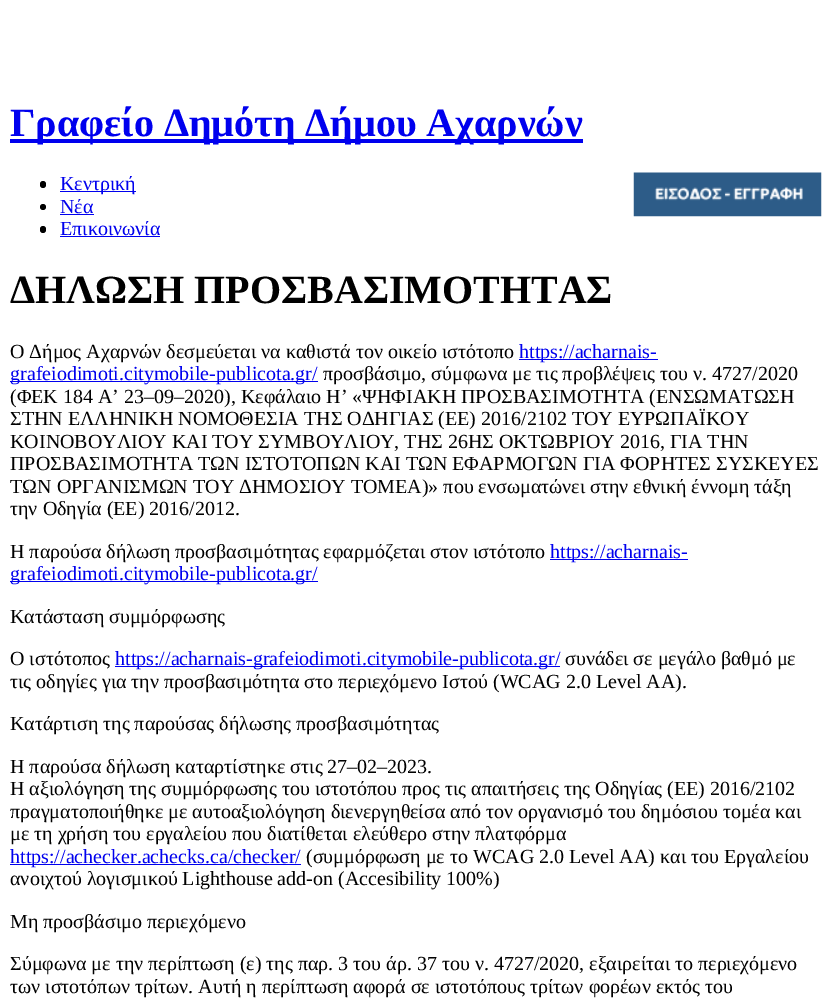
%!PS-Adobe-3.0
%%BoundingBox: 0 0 831 1006
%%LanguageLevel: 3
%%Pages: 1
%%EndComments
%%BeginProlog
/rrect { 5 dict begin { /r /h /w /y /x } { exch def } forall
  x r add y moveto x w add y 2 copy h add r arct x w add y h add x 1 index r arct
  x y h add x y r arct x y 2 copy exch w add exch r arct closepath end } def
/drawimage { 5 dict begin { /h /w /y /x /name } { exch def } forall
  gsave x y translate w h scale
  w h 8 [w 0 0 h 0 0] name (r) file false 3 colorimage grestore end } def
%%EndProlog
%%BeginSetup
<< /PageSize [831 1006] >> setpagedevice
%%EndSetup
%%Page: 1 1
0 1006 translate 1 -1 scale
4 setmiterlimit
1 setgray
0 0 831 1006 rectfill
0 0 0.933 setrgbcolor
10 139 573 4 rectfill
0 setgray
40 181 6 7 3 rrect fill
0 0 0.933 setrgbcolor
60 191 76 1 rectfill
0 setgray
newpath 43 207 3 0 360 arc closepath fill
0 0 0.933 setrgbcolor
60 214 34 1 rectfill
0 setgray
40 226 6 7 3 rrect fill
0 0 0.933 setrgbcolor
60 236 100 1 rectfill
(images/1.raw) 633 172 189 45 drawimage
519 359 139 1 rectfill
10 381 308 1 rectfill
550 559 138 1 rectfill
10 581 308 1 rectfill
115 666 445 1 rectfill
10 864 291 1 rectfill
/LiberationSerif-Bold [40 0 0 -40 0 0] selectfont
10 136 moveto (Γραφείο Δημότη Δήμου Αχαρνών) show
/LiberationSerif-Regular [20 0 0 -20 0 0] selectfont
60 190 moveto (Κεντρική) show
60 213 moveto (Νέα) show
60 235 moveto (Επικοινωνία) show
/LiberationSerif-Bold [40 0 0 -40 0 0] selectfont
0 setgray
10 303 moveto (ΔΗΛΩΣΗ ΠΡΟΣΒΑΣΙΜΟΤΗΤΑΣ) show
/LiberationSerif-Regular [20 0 0 -20 0 0] selectfont
10 358 moveto (Ο Δήμος Αχαρνών δεσμεύεται να καθιστά τον οικείο ιστότοπο) show
0 0 0.933 setrgbcolor
519 358 moveto (https://acharnais-) show
10 380 moveto (grafeiodimoti.citymobile-publicota.gr/) show
0 setgray
323 380 moveto (προσβάσιμο, σύμφωνα με τις προβλέψεις του ν. 4727/2020) show
10 403 moveto (\(ΦΕΚ 184 Α’ 23–09–2020\), Κεφάλαιο Η’ «ΨΗΦΙΑΚΗ ΠΡΟΣΒΑΣΙΜΟΤΗΤΑ \(ΕΝΣΩΜΑΤΩΣΗ) show
10 425 moveto (ΣΤΗΝ ΕΛΛΗΝΙΚΗ ΝΟΜΟΘΕΣΙΑ ΤΗΣ ΟΔΗΓΙΑΣ \(ΕΕ\) 2016/2102 ΤΟΥ ΕΥΡΩΠΑΪΚΟΥ) show
10 448 moveto (ΚΟΙΝΟΒΟΥΛΙΟΥ ΚΑΙ ΤΟΥ ΣΥΜΒΟΥΛΙΟΥ, ΤΗΣ 26ΗΣ ΟΚΤΩΒΡΙΟΥ 2016, ΓΙΑ ΤΗΝ) show
10 470 moveto (ΠΡΟΣΒΑΣΙΜΟΤΗΤΑ ΤΩΝ ΙΣΤΟΤΟΠΩΝ ΚΑΙ ΤΩΝ ΕΦΑΡΜΟΓΩΝ ΓΙΑ ΦΟΡΗΤΕΣ ΣΥΣΚΕΥΕΣ) show
10 493 moveto (ΤΩΝ ΟΡΓΑΝΙΣΜΩΝ ΤΟΥ ΔΗΜΟΣΙΟΥ ΤΟΜΕΑ\)» που ενσωματώνει στην εθνική έννομη τάξη) show
10 515 moveto (την Οδηγία \(ΕΕ\) 2016/2012.) show
10 558 moveto (Η παρούσα δήλωση προσβασιμότητας εφαρμόζεται στον ιστότοπο) show
0 0 0.933 setrgbcolor
550 558 moveto (https://acharnais-) show
10 580 moveto (grafeiodimoti.citymobile-publicota.gr/) show
0 setgray
10 623 moveto (Κατάσταση συμμόρφωσης) show
10 665 moveto (Ο ιστότοπος) show
0 0 0.933 setrgbcolor
115 665 moveto (https://acharnais-grafeiodimoti.citymobile-publicota.gr/) show
0 setgray
565 665 moveto (συνάδει σε μεγάλο βαθμό με) show
10 688 moveto (τις οδηγίες για την προσβασιμότητα στο περιεχόμενο Ιστού \(WCAG 2.0 Level AA\).) show
10 730 moveto (Κατάρτιση της παρούσας δήλωσης προσβασιμότητας) show
10 773 moveto (Η παρούσα δήλωση καταρτίστηκε στις 27–02–2023.) show
10 795 moveto (Η αξιολόγηση της συμμόρφωσης του ιστοτόπου προς τις απαιτήσεις της Οδηγίας \(ΕΕ\) 2016/2102) show
10 818 moveto (πραγματοποιήθηκε με αυτοαξιολόγηση διενεργηθείσα από τον οργανισμό του δημόσιου τομέα και) show
10 840 moveto (με τη χρήση του εργαλείου που διατίθεται ελεύθερο στην πλατφόρμα) show
0 0 0.933 setrgbcolor
10 863 moveto (https://achecker.achecks.ca/checker/) show
0 setgray
306 863 moveto (\(συμμόρφωση με το WCAG 2.0 Level AA\) και του Εργαλείου) show
10 885 moveto (ανοιχτού λογισμικού Lighthouse add-on \(Accesibility 100%\)) show
10 928 moveto (Μη προσβάσιμο περιεχόμενο) show
10 970 moveto (Σύμφωνα με την περίπτωση \(ε\) της παρ. 3 του άρ. 37 του ν. 4727/2020, εξαιρείται το περιεχόμενο) show
10 993 moveto (των ιστοτόπων τρίτων. Αυτή η περίπτωση αφορά σε ιστοτόπους τρίτων φορέων εκτός του) show
showpage
%%EOF
